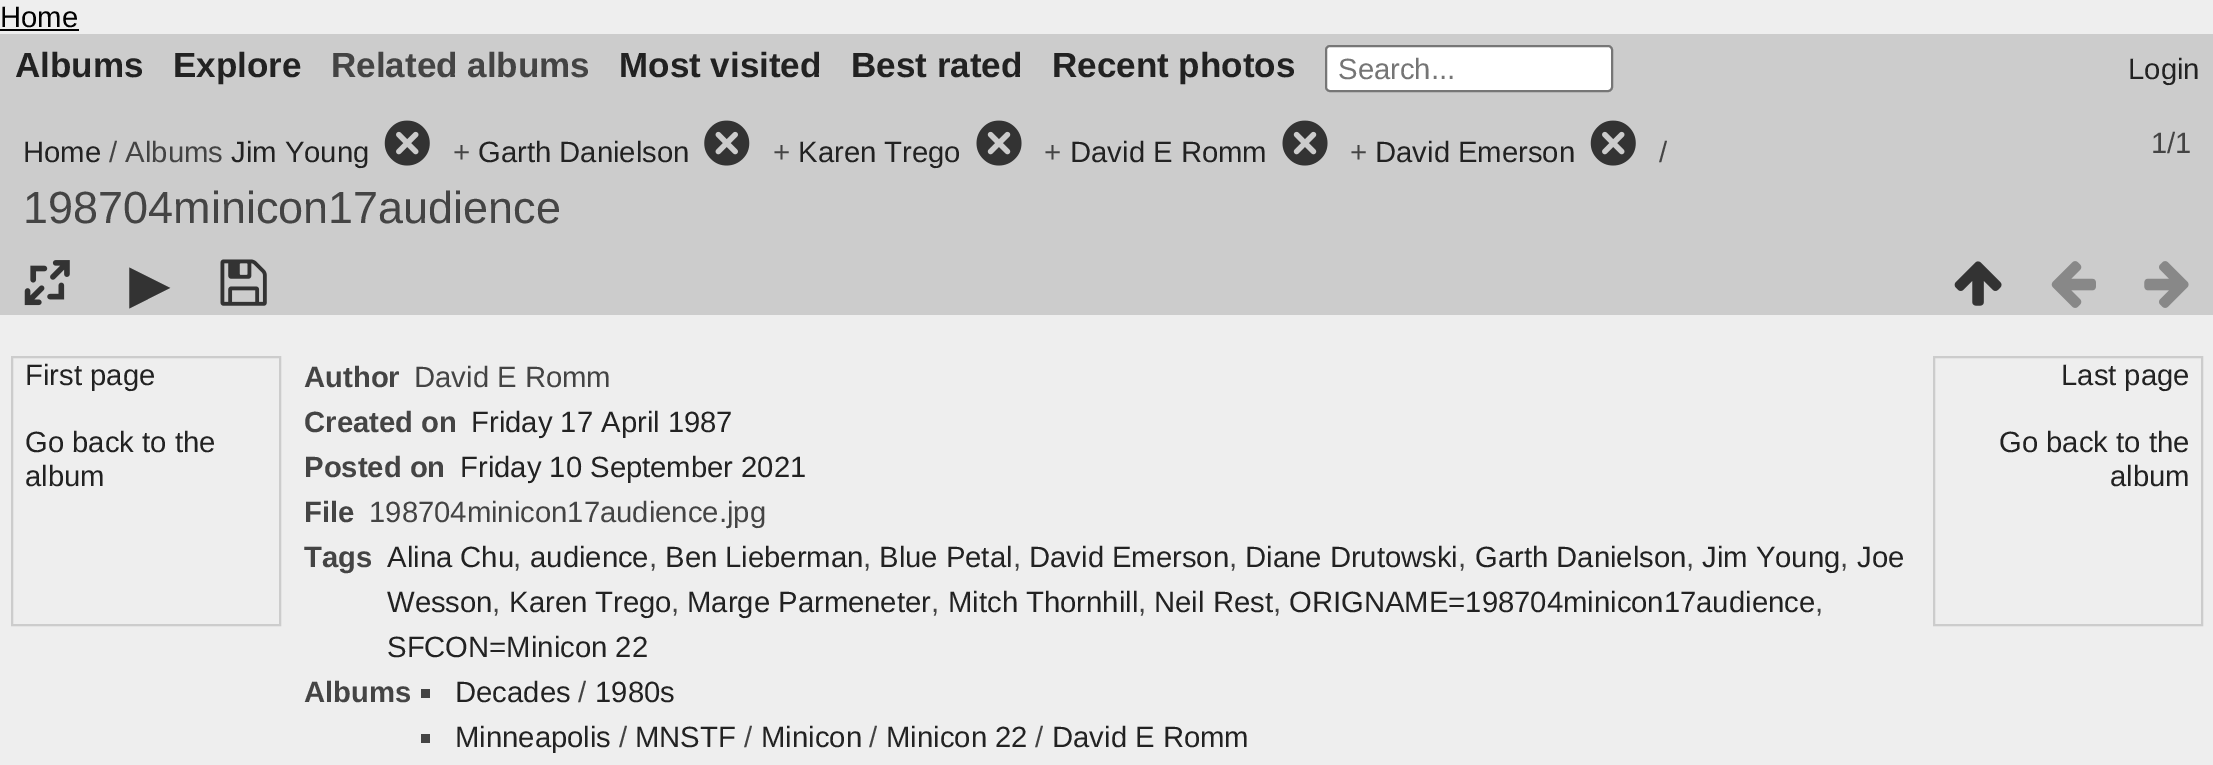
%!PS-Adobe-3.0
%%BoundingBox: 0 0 2213 765
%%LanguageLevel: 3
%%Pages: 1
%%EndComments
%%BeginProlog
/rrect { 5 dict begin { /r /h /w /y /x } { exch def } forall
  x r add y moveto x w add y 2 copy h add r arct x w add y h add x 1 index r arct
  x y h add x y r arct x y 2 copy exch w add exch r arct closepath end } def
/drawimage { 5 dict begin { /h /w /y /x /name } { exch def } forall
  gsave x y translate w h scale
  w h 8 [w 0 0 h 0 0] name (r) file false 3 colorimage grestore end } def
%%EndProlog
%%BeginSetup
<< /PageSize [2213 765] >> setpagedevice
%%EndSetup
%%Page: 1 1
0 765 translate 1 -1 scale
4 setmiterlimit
0.933 setgray
0 0 2213 765 rectfill
0 setgray
0 29 79 2 rectfill
0.8 setgray
0 34 2213 281 rectfill
1 setgray
1326 46 286 45 4 rrect gsave fill grestore
0.463 setgray
2 setlinewidth
stroke
(images/1.raw) 384 120 46 46 drawimage
(images/2.raw) 704 120 46 46 drawimage
(images/3.raw) 976 120 46 46 drawimage
(images/3.raw) 1282 120 46 46 drawimage
(images/1.raw) 1590 120 46 46 drawimage
(images/4.raw) 24 260 46 46 drawimage
(images/5.raw) 220 259 47 47 drawimage
(images/6.raw) 1954 261 48 45 drawimage
(images/7.raw) 2051 261 45 47 drawimage
(images/8.raw) 2144 261 45 47 drawimage
0.8 setgray
12 357 268 268 rectstroke
1934 357 268 268 rectstroke
0.267 setgray
421 689 9 9 rectfill
421 734 9 9 rectfill
/LiberationSans-Regular [29.25 0 0 -29.25 0 0] selectfont
0 setgray
0 27 moveto (Home) show
/LiberationSans-Bold [35 0 0 -35 0 0] selectfont
0.133 setgray
15 77 moveto (Albums) show
173 77 moveto (Explore) show
0.267 setgray
331 77 moveto (Related albums) show
0.133 setgray
619 77 moveto (Most visited) show
851 77 moveto (Best rated) show
1052 77 moveto (Recent photos) show
/LiberationSans-Regular [29.25 0 0 -29.25 0 0] selectfont
0.459 setgray
1338 79 moveto (Search...) show
0.133 setgray
2128 79 moveto (Login) show
23 162 moveto (Home) show
0.267 setgray
109 162 moveto (/ Albums) show
0.133 setgray
231 162 moveto (Jim Young) show
0.267 setgray
453 162 moveto (+) show
0.133 setgray
478 162 moveto (Garth Danielson) show
0.267 setgray
773 162 moveto (+) show
0.133 setgray
798 162 moveto (Karen Trego) show
0.267 setgray
1044 162 moveto (+) show
0.133 setgray
1070 162 moveto (David E Romm) show
0.267 setgray
1350 162 moveto (+) show
0.133 setgray
1375 162 moveto (David Emerson) show
0.267 setgray
1659 162 moveto (/) show
/LiberationSans-Regular [45 0 0 -45 0 0] selectfont
23 223 moveto (198704minicon17audience) show
/LiberationSans-Regular [29.25 0 0 -29.25 0 0] selectfont
2151 153 moveto (1/1) show
/DejaVuSans-Regular [54 0 0 -54 0 0] selectfont
0.2 setgray
129 302 moveto (▶) show
/LiberationSans-Regular [29.25 0 0 -29.25 0 0] selectfont
0.133 setgray
25 385 moveto (First page) show
25 452 moveto (Go back to the) show
25 486 moveto (album) show
2061 385 moveto (Last page) show
1999 452 moveto (Go back to the) show
2110 486 moveto (album) show
/LiberationSans-Bold [29.25 0 0 -29.25 0 0] selectfont
0.267 setgray
304 387 moveto (Author) show
/LiberationSans-Regular [29.25 0 0 -29.25 0 0] selectfont
414 387 moveto (David E Romm) show
/LiberationSans-Bold [29.25 0 0 -29.25 0 0] selectfont
304 432 moveto (Created on) show
/LiberationSans-Regular [29.25 0 0 -29.25 0 0] selectfont
0.133 setgray
471 432 moveto (Friday 17 April 1987) show
/LiberationSans-Bold [29.25 0 0 -29.25 0 0] selectfont
0.267 setgray
304 477 moveto (Posted on) show
/LiberationSans-Regular [29.25 0 0 -29.25 0 0] selectfont
0.133 setgray
460 477 moveto (Friday 10 September 2021) show
/LiberationSans-Bold [29.25 0 0 -29.25 0 0] selectfont
0.267 setgray
304 522 moveto (File) show
/LiberationSans-Regular [29.25 0 0 -29.25 0 0] selectfont
369 522 moveto (198704minicon17audience.jpg) show
/LiberationSans-Bold [29.25 0 0 -29.25 0 0] selectfont
304 567 moveto (Tags) show
/LiberationSans-Regular [29.25 0 0 -29.25 0 0] selectfont
0.133 setgray
387 567 moveto (Alina Chu) show
0.267 setgray
513 567 moveto (,) show
0.133 setgray
530 567 moveto (audience) show
0.267 setgray
649 567 moveto (,) show
0.133 setgray
665 567 moveto (Ben Lieberman) show
0.267 setgray
863 567 moveto (,) show
0.133 setgray
879 567 moveto (Blue Petal) show
0.267 setgray
1013 567 moveto (,) show
0.133 setgray
1029 567 moveto (David Emerson) show
0.267 setgray
1229 567 moveto (,) show
0.133 setgray
1245 567 moveto (Diane Drutowski) show
0.267 setgray
1458 567 moveto (,) show
0.133 setgray
1475 567 moveto (Garth Danielson) show
0.267 setgray
1686 567 moveto (,) show
0.133 setgray
1702 567 moveto (Jim Young) show
0.267 setgray
1840 567 moveto (,) show
0.133 setgray
1857 567 moveto (Joe) show
387 612 moveto (Wesson) show
0.267 setgray
492 612 moveto (,) show
0.133 setgray
509 612 moveto (Karen Trego) show
0.267 setgray
671 612 moveto (,) show
0.133 setgray
687 612 moveto (Marge Parmeneter) show
0.267 setgray
931 612 moveto (,) show
0.133 setgray
948 612 moveto (Mitch Thornhill) show
0.267 setgray
1138 612 moveto (,) show
0.133 setgray
1154 612 moveto (Neil Rest) show
0.267 setgray
1273 612 moveto (,) show
0.133 setgray
1289 612 moveto (ORIGNAME=198704minicon17audience) show
0.267 setgray
1815 612 moveto (,) show
0.133 setgray
387 657 moveto (SFCON=Minicon 22) show
/LiberationSans-Bold [29.25 0 0 -29.25 0 0] selectfont
0.267 setgray
304 702 moveto (Albums) show
/LiberationSans-Regular [29.25 0 0 -29.25 0 0] selectfont
0.133 setgray
455 702 moveto (Decades) show
0.267 setgray
578 702 moveto (/) show
0.133 setgray
595 702 moveto (1980s) show
455 747 moveto (Minneapolis) show
0.267 setgray
619 747 moveto (/) show
0.133 setgray
635 747 moveto (MNSTF) show
0.267 setgray
744 747 moveto (/) show
0.133 setgray
761 747 moveto (Minicon) show
0.267 setgray
869 747 moveto (/) show
0.133 setgray
886 747 moveto (Minicon 22) show
0.267 setgray
1035 747 moveto (/) show
0.133 setgray
1052 747 moveto (David E Romm) show
showpage
%%EOF
